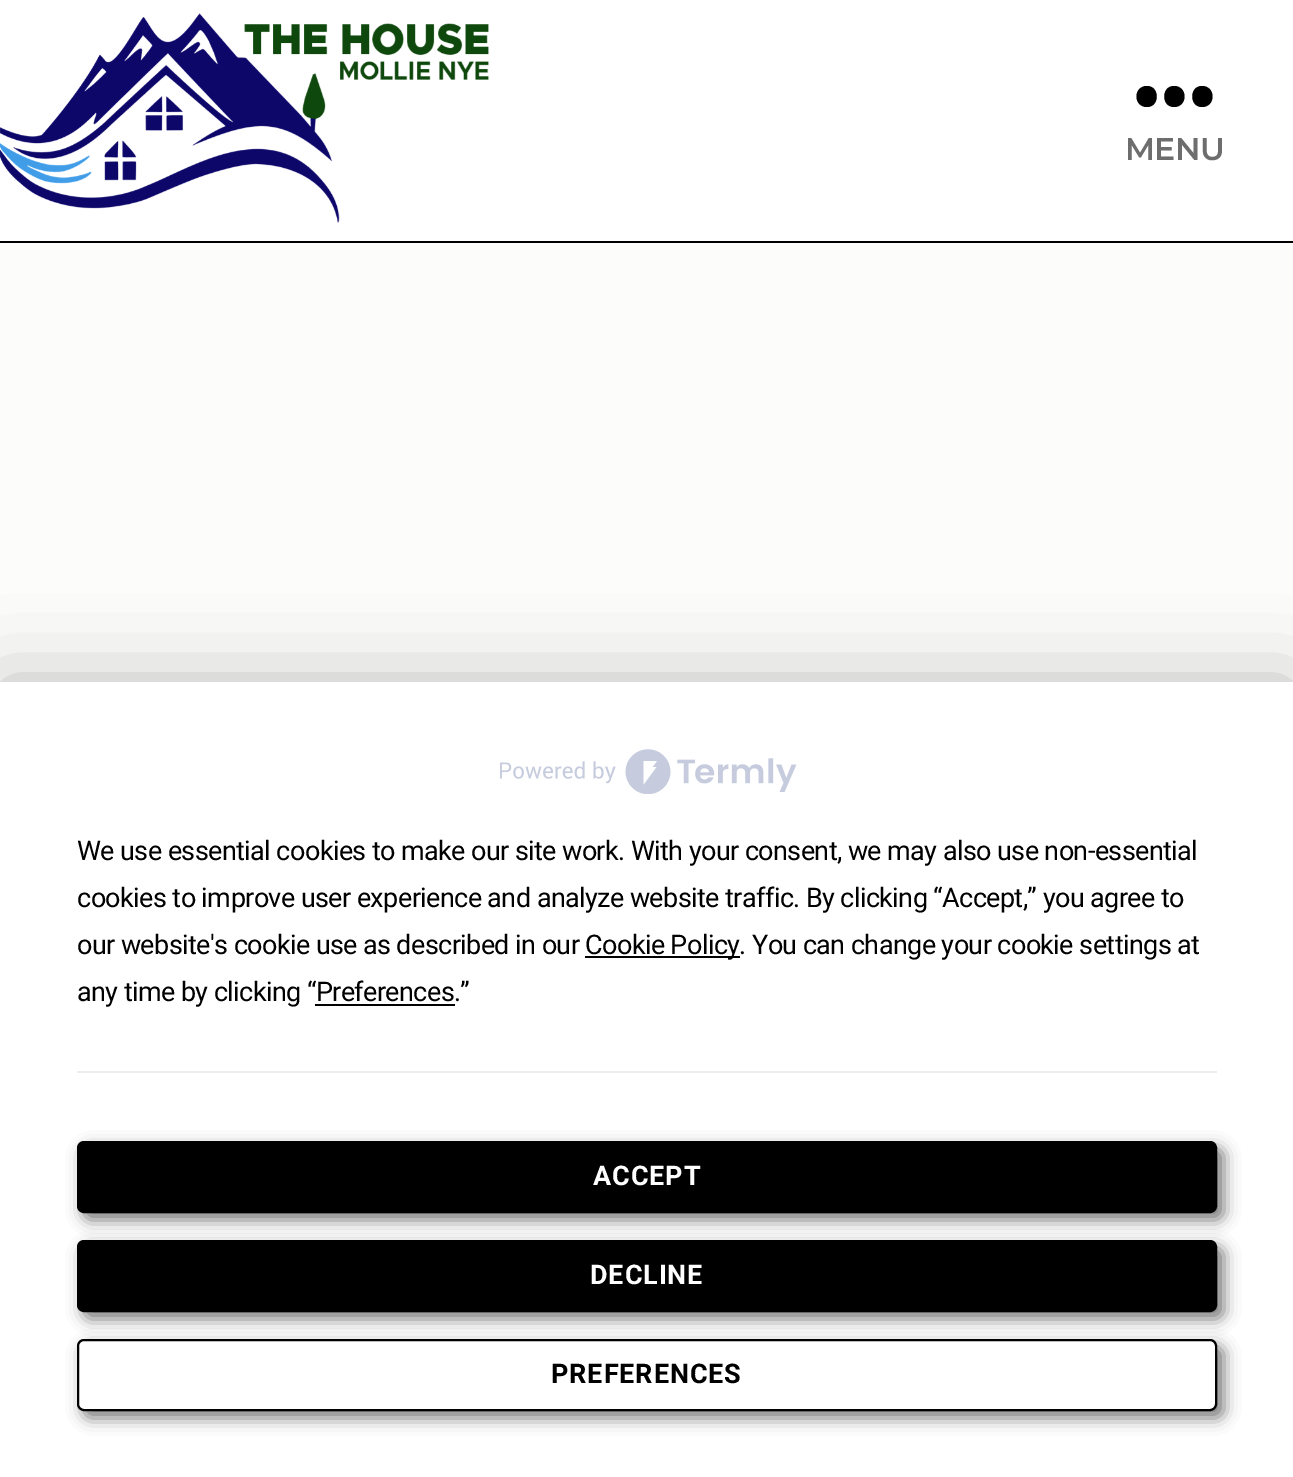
%!PS-Adobe-3.0
%%BoundingBox: 0 0 1293 1477
%%LanguageLevel: 3
%%Pages: 1
%%EndComments
%%BeginProlog
/setalpha { dup .setfillconstantalpha .setstrokeconstantalpha } def
/rrect { 5 dict begin { /r /h /w /y /x } { exch def } forall
  x r add y moveto x w add y 2 copy h add r arct x w add y h add x 1 index r arct
  x y h add x y r arct x y 2 copy exch w add exch r arct closepath end } def
/softshadow { 12 dict begin { /a /b /q /h /w /y /x } { exch def } forall gsave /was 0 def
  9 -2 -9 { dup b mul 4 div /e exch def 1 sub .425 mul 2.718 exch exp 1 add a .99 .min exch div /now exch def
    1 1 now sub 1 was sub div sub setalpha /was now def
    w h .min e 2 mul add 0 gt { x e sub y e sub w e 2 mul add h e 2 mul add
      q e add b .6 mul add w h .min 2 div e add .min 0 .max rrect fill } if } for grestore end } def
/drawimage { 5 dict begin { /h /w /y /x /name } { exch def } forall
  gsave x y translate w h scale
  w h 8 [w 0 0 h 0 0] name (r) file false 3 colorimage grestore end } def
%%EndProlog
%%BeginSetup
<< /PageSize [1293 1477] /PageUsesTransparency true >> setpagedevice
%%EndSetup
%%Page: 1 1
0 .pushpdf14devicefilter
0 1477 translate 1 -1 scale
4 setmiterlimit
0.988 0.988 0.98 setrgbcolor
0 0 1293 1477 rectfill
1 setgray
0 0 1293 241 rectfill
0 setgray
0 241 1293 2 rectfill
(images/1.raw) 0 13 489 210 drawimage
newpath 1147 107 moveto 1133 107 1133 86 1147 86 curveto 1160 86 1160 107 1147 107 curveto closepath 1174 107 moveto 1161 107 1161 86 1174 86 curveto 1188 86 1188 107 1174 107 curveto closepath 1202 107 moveto 1189 107 1189 86 1202 86 curveto 1216 86 1216 107 1202 107 curveto closepath eofill
0 682 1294 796 0 39.5 0.25 softshadow
1 setgray
0 682 1293 795 rectfill
(images/2.raw) 500 749 297 45 drawimage
0 setgray
585 956 155 2 rectfill
315 1004 140 2 rectfill
0.929 0.929 0.937 setrgbcolor
77 1071 1140 2 rectfill
gsave
newpath 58 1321 moveto 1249 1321 lineto 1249 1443 lineto 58 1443 lineto closepath 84 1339 moveto 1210 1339 lineto 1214 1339 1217 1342 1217 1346 curveto 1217 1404 lineto 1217 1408 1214 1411 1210 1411 curveto 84 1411 lineto 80 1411 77 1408 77 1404 curveto 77 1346 lineto 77 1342 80 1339 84 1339 curveto closepath eoclip newpath
0.467 setgray
83 1346 1141 72 7 8 1 softshadow
grestore
0 setgray
2 setlinewidth
78 1340 1138 70 6 rrect stroke
0.467 setgray
83 1247 1141 72 7 8 1 softshadow
0 setgray
78 1241 1138 70 6 rrect gsave fill grestore
stroke
0.467 setgray
83 1148 1141 72 7 8 1 softshadow
0 setgray
78 1142 1138 70 6 rrect gsave fill grestore
stroke
/Montserrat-SemiBold [31.5 0 0 -31.5 0 0] selectfont
0.427 setgray
1125 160 moveto -0.6 0 (MENU) ashow
/Roboto-Regular [27 0 0 -27 0 0] selectfont
0 setgray
77 860 moveto -0.6 0 (We use essential cookies to make our site work. With your consent, we may also use non-essential) ashow
77 907 moveto -0.6 0 (cookies to improve user experience and analyze website traffic. By clicking “Accept,” you agree to) ashow
77 954 moveto -0.6 0 (our website's cookie use as described in our) ashow
585 954 moveto -0.6 0 (Cookie Policy. You can change your cookie settings at) ashow
77 1001 moveto -0.6 0 (any time by clicking “Preferences.”) ashow
/Roboto-Bold [27 0 0 -27 0 0] selectfont
1 setgray
593 1185 moveto 0.9 0 (ACCEPT) ashow
590 1284 moveto 0.9 0 (DECLINE) ashow
0 setgray
551 1383 moveto 0.9 0 (PREFERENCES) ashow
.poppdf14devicefilter showpage
%%EOF
